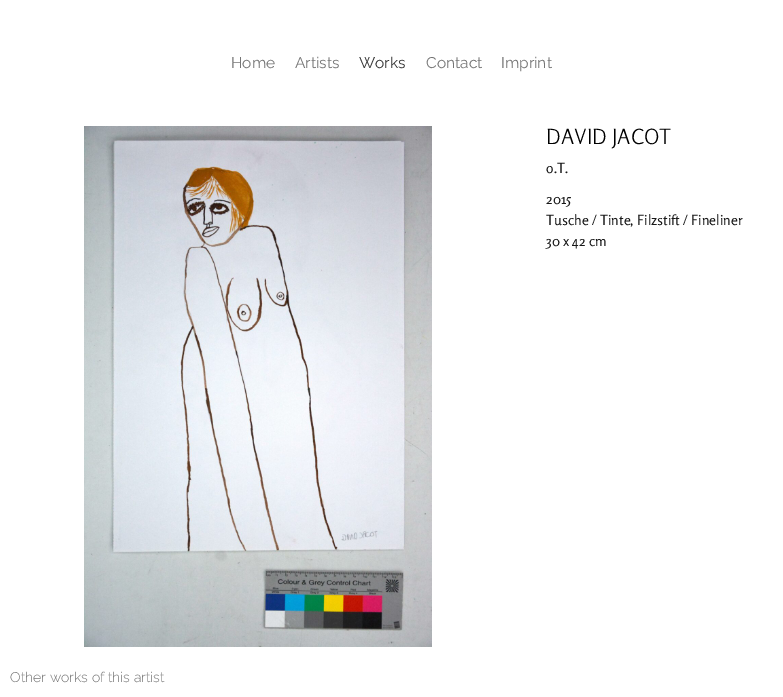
%!PS-Adobe-3.0
%%BoundingBox: 0 0 783 697
%%LanguageLevel: 3
%%Pages: 1
%%EndComments
%%BeginProlog
/drawimage { 5 dict begin { /h /w /y /x /name } { exch def } forall
  gsave x y translate w h scale
  w h 8 [w 0 0 h 0 0] name (r) file false 3 colorimage grestore end } def
%%EndProlog
%%BeginSetup
<< /PageSize [783 697] >> setpagedevice
%%EndSetup
%%Page: 1 1
0 697 translate 1 -1 scale
4 setmiterlimit
1 setgray
0 0 783 697 rectfill
(images/1.raw) 84 126 348 521 drawimage
/Raleway-Regular [15.5 0 0 -15.5 0 0] selectfont
0.459 setgray
231 68 moveto (Home) show
295 68 moveto (Artists) show
0.2 setgray
359 68 moveto (Works) show
0.459 setgray
426 68 moveto (Contact) show
501 68 moveto (Imprint) show
/Rosario-Light [21 0 0 -21 0 0] selectfont
0 setgray
546 144 moveto (DAVID JACOT) show
/Rosario-Regular [14 0 0 -14 0 0] selectfont
0.094 setgray
546 173 moveto (o.T.) show
546 204 moveto (2015) show
546 225 moveto (Tusche / Tinte, Filzstift / Fineliner) show
546 246 moveto (30 x 42 cm) show
/Raleway-Light [14 0 0 -14 0 0] selectfont
0.459 setgray
10 682 moveto (Other works of this artist) show
showpage
%%EOF
